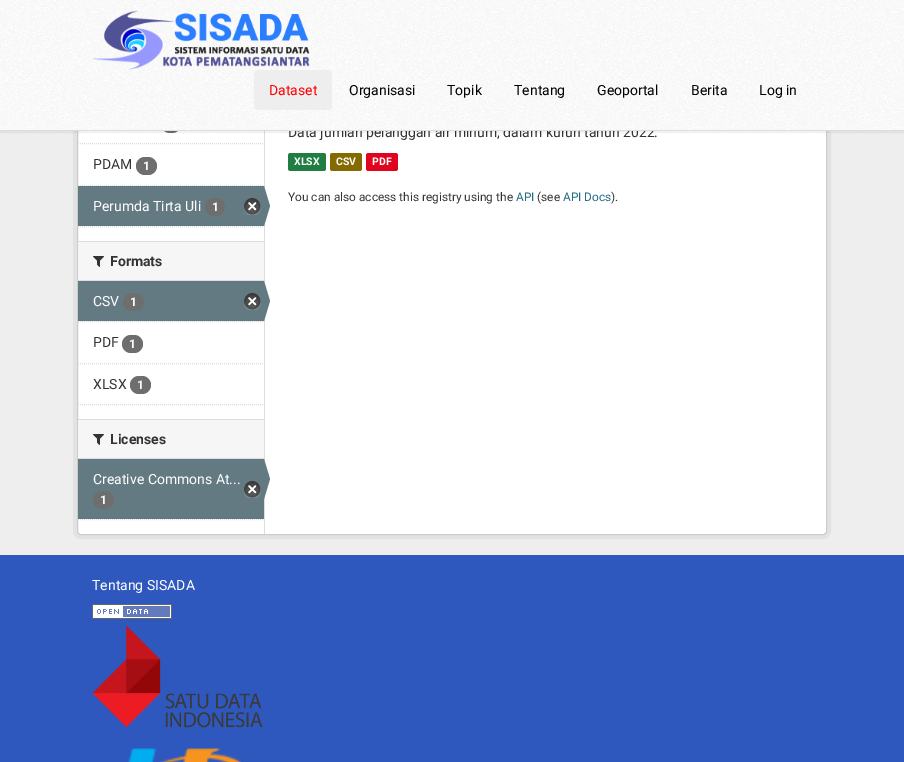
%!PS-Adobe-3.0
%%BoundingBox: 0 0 904 762
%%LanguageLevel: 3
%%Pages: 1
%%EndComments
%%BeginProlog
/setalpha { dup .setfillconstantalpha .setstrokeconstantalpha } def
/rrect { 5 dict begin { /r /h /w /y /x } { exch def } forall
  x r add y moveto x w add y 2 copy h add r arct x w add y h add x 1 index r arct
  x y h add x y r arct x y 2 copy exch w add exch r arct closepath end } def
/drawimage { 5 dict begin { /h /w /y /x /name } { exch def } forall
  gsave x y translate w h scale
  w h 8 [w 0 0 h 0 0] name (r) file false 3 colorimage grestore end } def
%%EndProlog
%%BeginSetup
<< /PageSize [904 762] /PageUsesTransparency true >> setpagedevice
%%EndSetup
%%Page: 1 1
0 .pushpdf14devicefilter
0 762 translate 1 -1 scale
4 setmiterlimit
0.933 setgray
0 0 904 762 rectfill
0.886 setgray
4 setlinewidth
75 -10 754 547 6 rrect stroke
1 setgray
77.5 -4.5 749 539 3.5 rrect gsave fill grestore
0.8 setgray
1 setlinewidth
stroke
0.867 setgray
[1 1] 0 setdash
newpath 78 143.5 moveto 264 143.5 lineto stroke
0.431 setgray
161 115 20 18 9 rrect fill
0.867 setgray
newpath 78 185.5 moveto 264 185.5 lineto stroke
0.431 setgray
136 157 21 18 9 rrect fill
0.392 0.478 0.51 setrgbcolor
78 186 186 40 rectfill
0.431 setgray
205 198 20 18 9 rrect fill
(images/3.raw) 244 198 17 17 drawimage
0.867 setgray
264 131 1 403 rectfill
0.392 0.478 0.51 setrgbcolor
newpath 264 226 moveto 264 186 lineto 270 206 lineto closepath fill
0.867 setgray
newpath 78 226.5 moveto 264 226.5 lineto stroke
0.965 setgray
78 242 186 38 rectfill
0.867 setgray
78 241 186 1 rectfill
78 280 186 1 rectfill
(images/4.raw) 93 256 11 11 drawimage
0.965 setgray
79 321 185 1 rectfill
0.867 setgray
newpath 78 321.5 moveto 264 321.5 lineto stroke
0.392 0.478 0.51 setrgbcolor
78 281 186 40 rectfill
0.431 setgray
123 293 21 18 9 rrect fill
(images/3.raw) 244 293 17 17 drawimage
0.392 0.478 0.51 setrgbcolor
newpath 264 321 moveto 264 281 lineto 270 301 lineto closepath fill
0.867 setgray
newpath 78 363.5 moveto 264 363.5 lineto stroke
0.431 setgray
122 335 21 18 9 rrect fill
130 376 21 18 9 rrect fill
0.867 setgray
newpath 78 404.5 moveto 264 404.5 lineto stroke
0.965 setgray
78 420 186 38 rectfill
0.867 setgray
78 419 186 1 rectfill
78 458 186 1 rectfill
(images/4.raw) 93 434 11 11 drawimage
0.392 0.478 0.51 setrgbcolor
78 459 186 60 rectfill
newpath 264 499 moveto 264 459 lineto 270 479 lineto closepath fill
(images/3.raw) 244 481 17 17 drawimage
0.431 setgray
93 491 21 18 9 rrect fill
0.867 setgray
newpath 78 519.5 moveto 264 519.5 lineto stroke
0.125 0.494 0.259 setrgbcolor
288 153 38 18 2.5 rrect fill
0.522 0.416 0 setrgbcolor
330 153 32 18 2.5 rrect fill
0.878 0.02 0.118 setrgbcolor
366 153 32 18 2.5 rrect fill
0.184 0.345 0.749 setrgbcolor
0 555 904 207 rectfill
(images/5.raw) 92 604 80 15 drawimage
(images/6.raw) 92 625 171 103 drawimage
(images/7.raw) 128 748 114 14 drawimage
/Roboto-Regular [14 0 0 -14 0 0] selectfont
0.2 setgray
93 169 moveto (PDAM) show
/Roboto-Bold [12 0 0 -12 0 0] selectfont
1 setgray
143 170 moveto (1) show
/Roboto-Regular [14 0 0 -14 0 0] selectfont
93 211 moveto (Perumda Tirta Uli) show
/Roboto-Bold [12 0 0 -12 0 0] selectfont
212 211 moveto (1) show
/Roboto-Bold [14 0 0 -14 0 0] selectfont
0.2 setgray
110 266 moveto (Formats) show
/Roboto-Regular [14 0 0 -14 0 0] selectfont
1 setgray
93 306 moveto (CSV) show
/Roboto-Bold [12 0 0 -12 0 0] selectfont
130 306 moveto (1) show
/Roboto-Regular [14 0 0 -14 0 0] selectfont
0.2 setgray
93 347 moveto (PDF) show
/Roboto-Bold [12 0 0 -12 0 0] selectfont
1 setgray
129 348 moveto (1) show
/Roboto-Regular [14 0 0 -14 0 0] selectfont
0.2 setgray
93 389 moveto (XLSX) show
/Roboto-Bold [12 0 0 -12 0 0] selectfont
1 setgray
137 389 moveto (1) show
/Roboto-Bold [14 0 0 -14 0 0] selectfont
0.2 setgray
110 444 moveto (Licenses) show
/Roboto-Regular [14 0 0 -14 0 0] selectfont
1 setgray
93 484 moveto (Creative Commons At...) show
/Roboto-Bold [12 0 0 -12 0 0] selectfont
100 504 moveto (1) show
/Roboto-Regular [14 0 0 -14 0 0] selectfont
0.2 setgray
288 137 moveto (Data jumlah pelanggan air minum, dalam kurun tahun 2022.) show
0.05 setalpha
0 setgray
2 setlinewidth
[] 0 setdash
-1 -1 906 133 rectstroke
1 setalpha
1 setgray
0 0 904 130 rectfill
(images/1.raw) 0 0 904 130 drawimage
0 setgray
759 95 moveto (Log in) show
691 95 moveto (Berita) show
597 95 moveto (Geoportal) show
514 95 moveto (Tentang) show
447 95 moveto (Topik) show
349 95 moveto (Organisasi) show
0.933 setgray
254 70 78 40 4 rrect fill
1 0 0 setrgbcolor
269 95 moveto (Dataset) show
(images/2.raw) 92 10 218 60 drawimage
0.867 setgray
0 130 904 1 rectfill
/Roboto-Bold [10.5 0 0 -10.5 0 0] selectfont
1 setgray
294 165 moveto (XLSX) show
336 165 moveto (CSV) show
372 165 moveto (PDF) show
/Roboto-Regular [11.9 0 0 -11.9 0 0] selectfont
0.2 setgray
288 201 moveto (You can also access this registry using the) show
0.125 0.42 0.51 setrgbcolor
516 201 moveto (API) show
0.2 setgray
537 201 moveto (\(see) show
0.125 0.42 0.51 setrgbcolor
563 201 moveto (API Docs) show
0.2 setgray
611 201 moveto (\).) show
/Roboto-Regular [14 0 0 -14 0 0] selectfont
1 setgray
92 590 moveto (Tentang SISADA) show
.poppdf14devicefilter showpage
%%EOF
